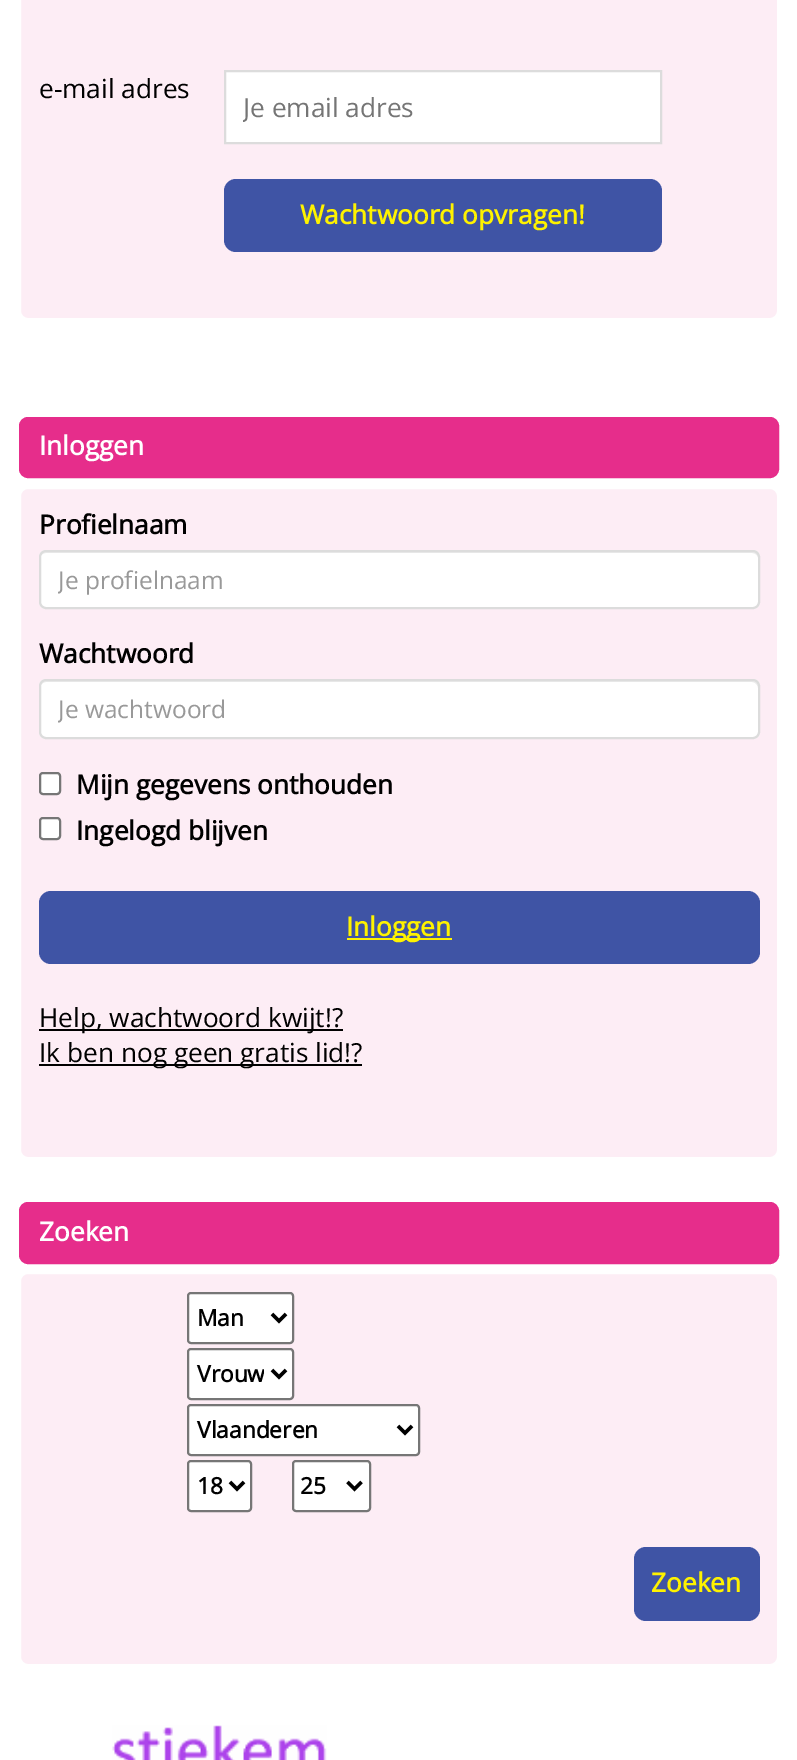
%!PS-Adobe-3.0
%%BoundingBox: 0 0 797 1760
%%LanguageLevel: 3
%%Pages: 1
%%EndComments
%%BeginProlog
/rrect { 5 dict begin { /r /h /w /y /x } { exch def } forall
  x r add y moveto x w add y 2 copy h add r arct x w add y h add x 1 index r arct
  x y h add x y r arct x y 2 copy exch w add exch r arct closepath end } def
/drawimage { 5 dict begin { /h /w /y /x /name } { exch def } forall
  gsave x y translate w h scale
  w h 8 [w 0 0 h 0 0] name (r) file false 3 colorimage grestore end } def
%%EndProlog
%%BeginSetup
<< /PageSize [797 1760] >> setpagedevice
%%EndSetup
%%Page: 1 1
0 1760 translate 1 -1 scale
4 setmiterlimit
1 setgray
0 0 797 1760 rectfill
0.992 0.929 0.961 setrgbcolor
20 -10 758 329 8 rrect gsave fill grestore
1 setgray
2 setlinewidth
stroke
newpath 225 71 moveto 661 71 lineto 661 143 lineto 225 143 lineto closepath gsave fill grestore
0.863 setgray
stroke
0.247 0.329 0.647 setrgbcolor
224 179 438 73 12 rrect fill
0.902 0.176 0.545 setrgbcolor
20 418 758 59 8 rrect gsave fill grestore
stroke
0.992 0.929 0.961 setrgbcolor
20 488 758 670 8 rrect gsave fill grestore
1 setgray
stroke
39 550 721 59 7 rrect fill
0.925 setgray
newpath 46 553 moveto 752 553 lineto 755 553 758 555 758 558 curveto 758 556 lineto 758 553 756 551 753 551 curveto 45 551 lineto 42 551 40 553 40 556 curveto 40 558 lineto 40 555 43 553 46 553 curveto closepath fill
0.863 setgray
40 551 719 57 6 rrect stroke
1 setgray
39 679 721 60 7 rrect fill
0.925 setgray
newpath 46 682 moveto 752 682 lineto 755 682 758 685 758 688 curveto 758 686 lineto 758 683 756 681 753 681 curveto 45 681 lineto 42 681 40 683 40 686 curveto 40 688 lineto 40 685 43 682 46 682 curveto closepath fill
0.863 setgray
40 680 719 58 6 rrect stroke
1 setgray
40 773 20 21 3 rrect gsave fill grestore
0.463 setgray
stroke
1 setgray
40 818 20 21 3 rrect gsave fill grestore
0.463 setgray
stroke
0.247 0.329 0.647 setrgbcolor
39 891 721 73 12 rrect fill
0.996 0.949 0 setrgbcolor
347 938 105 2 rectfill
0 setgray
39 1029 304 2 rectfill
39 1064 323 2 rectfill
0.902 0.176 0.545 setrgbcolor
20 1203 758 60 8 rrect gsave fill grestore
stroke
0.992 0.929 0.961 setrgbcolor
20 1273 758 392 8 rrect gsave fill grestore
1 setgray
stroke
188 1293 105 50 3 rrect gsave fill grestore
0.463 setgray
stroke
0 setgray
3.5 setlinewidth
newpath 272 1314 moveto 279 1321 lineto 286 1314 lineto stroke
1 setgray
188 1349 105 50 3 rrect gsave fill grestore
0.463 setgray
2 setlinewidth
stroke
0 setgray
3.5 setlinewidth
newpath 272 1370 moveto 279 1377 lineto 286 1370 lineto stroke
1 setgray
188 1405 231 50 3 rrect gsave fill grestore
0.463 setgray
2 setlinewidth
stroke
0 setgray
3.5 setlinewidth
newpath 398 1426 moveto 405 1433 lineto 412 1426 lineto stroke
1 setgray
188 1461 63 50 3 rrect gsave fill grestore
0.463 setgray
2 setlinewidth
stroke
0 setgray
3.5 setlinewidth
newpath 230 1482 moveto 237 1489 lineto 244 1482 lineto stroke
1 setgray
293 1461 77 50 3 rrect gsave fill grestore
0.463 setgray
2 setlinewidth
stroke
0 setgray
3.5 setlinewidth
newpath 347.5 1482 moveto 354.5 1489 lineto 361.5 1482 lineto stroke
0.247 0.329 0.647 setrgbcolor
634 1547 126 74 12 rrect fill
(images/1.raw) 112 1725 215 35 drawimage
/OpenSans-Regular [26.25 0 0 -26.25 0 0] selectfont
0 setgray
39 98 moveto (e-mail adres) show
gsave
243 89 399 35 rectclip
0.459 setgray
243 117 moveto (Je email adres) show
grestore
/OpenSans-Bold [26.25 0 0 -26.25 0 0] selectfont
0.996 0.949 0 setrgbcolor
300 224 moveto (Wachtwoord opvragen!) show
1 setgray
39 455 moveto (Inloggen) show
0 setgray
39 534 moveto (Profielnaam) show
gsave
58 562 682 33 rectclip
/OpenSans-Regular [24.5 0 0 -24.5 0 0] selectfont
0.6 setgray
58 589 moveto (Je profielnaam) show
grestore
39 663 moveto (Wachtwoord) show
gsave
58 691 682 34 rectclip
/OpenSans-Regular [24.5 0 0 -24.5 0 0] selectfont
0.6 setgray
58 718 moveto (Je wachtwoord) show
grestore
76 794 moveto (Mijn gegevens onthouden) show
76 840 moveto (Ingelogd blijven) show
0.996 0.949 0 setrgbcolor
346 936 moveto (Inloggen) show
/OpenSans-Regular [26.25 0 0 -26.25 0 0] selectfont
0 setgray
39 1027 moveto (Help, wachtwoord kwijt!?) show
39 1062 moveto (Ik ben nog geen gratis lid!?) show
/OpenSans-Bold [26.25 0 0 -26.25 0 0] selectfont
1 setgray
39 1241 moveto (Zoeken) show
/OpenSans-Bold [22.75 0 0 -22.75 0 0] selectfont
0 setgray
197 1326 moveto (Man) show
gsave
196 1356 68 35 rectclip
197 1382 moveto (Vrouw) show
grestore
197 1438 moveto (Vlaanderen) show
197 1494 moveto (18) show
300 1494 moveto (25) show
/OpenSans-Bold [26.25 0 0 -26.25 0 0] selectfont
0.996 0.949 0 setrgbcolor
651 1592 moveto (Zoeken) show
showpage
%%EOF
